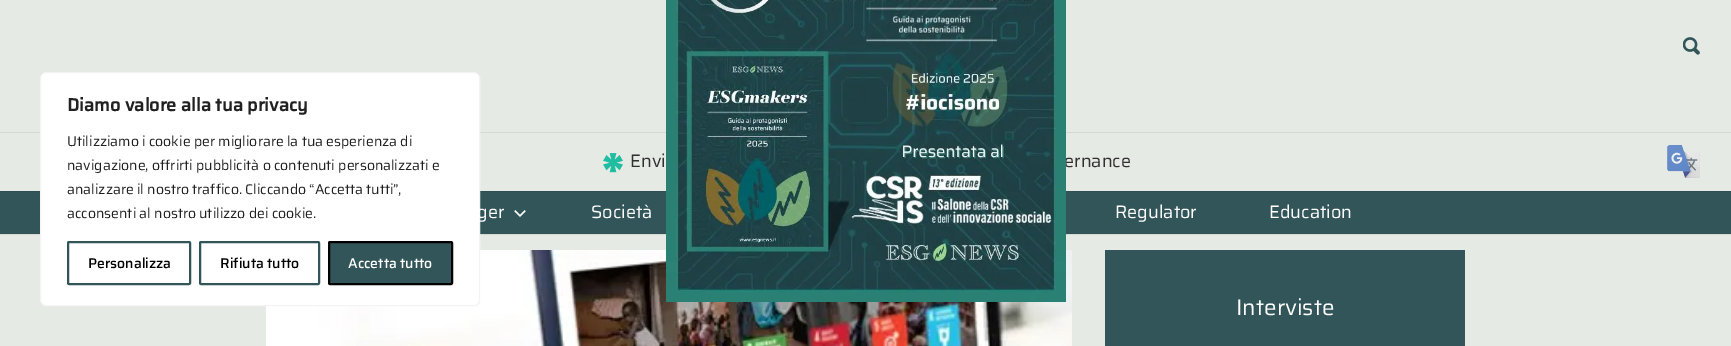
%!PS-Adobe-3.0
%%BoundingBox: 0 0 1731 346
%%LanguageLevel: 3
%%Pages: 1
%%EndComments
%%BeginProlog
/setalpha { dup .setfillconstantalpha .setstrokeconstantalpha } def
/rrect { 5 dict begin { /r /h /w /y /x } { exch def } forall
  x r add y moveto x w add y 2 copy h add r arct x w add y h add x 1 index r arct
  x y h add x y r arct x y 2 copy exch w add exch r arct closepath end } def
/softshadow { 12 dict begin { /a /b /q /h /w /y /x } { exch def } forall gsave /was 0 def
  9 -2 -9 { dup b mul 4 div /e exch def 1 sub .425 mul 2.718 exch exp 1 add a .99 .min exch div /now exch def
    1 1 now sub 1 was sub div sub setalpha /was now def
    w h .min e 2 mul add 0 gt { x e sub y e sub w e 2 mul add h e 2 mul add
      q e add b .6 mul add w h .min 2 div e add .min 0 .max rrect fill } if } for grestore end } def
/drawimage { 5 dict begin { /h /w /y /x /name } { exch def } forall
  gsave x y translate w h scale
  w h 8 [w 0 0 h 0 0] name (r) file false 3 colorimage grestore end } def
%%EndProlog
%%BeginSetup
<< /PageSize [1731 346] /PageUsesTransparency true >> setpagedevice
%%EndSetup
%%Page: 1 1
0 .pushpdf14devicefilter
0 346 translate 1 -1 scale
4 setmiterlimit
0.902 0.918 0.894 setrgbcolor
0 0 1731 346 rectfill
0.835 0.847 0.827 setrgbcolor
0 234 1731 1 rectfill
0 132 1731 1 rectfill
0.192 0.333 0.349 setrgbcolor
0 192 1731 42 rectfill
0.176 0.31 0.322 setrgbcolor
0 191 1731 1 rectfill
(images/6.raw) 266 250 806 96 drawimage
gsave
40 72 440 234 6 rrect clip newpath
0.675 0.671 0.671 setrgbcolor
40 71 440 234 6 5 0.3 softshadow
grestore
1 setgray
40.5 72.5 439 233 5.5 rrect gsave fill grestore
0.957 setgray
stroke
0.192 0.333 0.349 setrgbcolor
2 setlinewidth
68 242 122 42 1 rrect stroke
200 242 119 42 1 rrect stroke
329 242 123 42 1 rrect gsave fill grestore
0 setgray
stroke
(images/2.raw) 1683 37 17 18 drawimage
(images/3.raw) 603 153 20 20 drawimage
(images/4.raw) 1667 145 33 33 drawimage
(images/5.raw) 514 210 12 7 drawimage
0.192 0.333 0.349 setrgbcolor
1105 250 360 96 rectfill
/Saira-Bold [18 0 0 -18 0 0] selectfont
0.129 setgray
67 111 moveto (Diamo valore alla tua privacy) show
/Saira-Regular [14 0 0 -14 0 0] selectfont
67 146 moveto (Utilizziamo i cookie per migliorare la tua esperienza di) show
67 170 moveto (navigazione, offrirti pubblicità o contenuti personalizzati e) show
67 194 moveto (analizzare il nostro traffico. Cliccando “Accetta tutti”,) show
67 218 moveto (acconsenti al nostro utilizzo dei cookie.) show
/Saira-Medium [14 0 0 -14 0 0] selectfont
0 setgray
88 268 moveto (Personalizza) show
220 268 moveto (Rifiuta tutto) show
1 setgray
348 268 moveto (Accetta tutto) show
/Saira-Regular [18 0 0 -18 0 0] selectfont
0.188 setgray
630 167 moveto (Envi) show
1064 167 moveto (ernance) show
(images/1.raw) 666 0 400 302 drawimage
1 setgray
477 218 moveto (ger) show
591 218 moveto (Società) show
1115 218 moveto (Regulator) show
1269 218 moveto (Education) show
/Saira-Regular [22.5 0 0 -22.5 0 0] selectfont
1236 315 moveto (Interviste) show
.poppdf14devicefilter showpage
%%EOF
